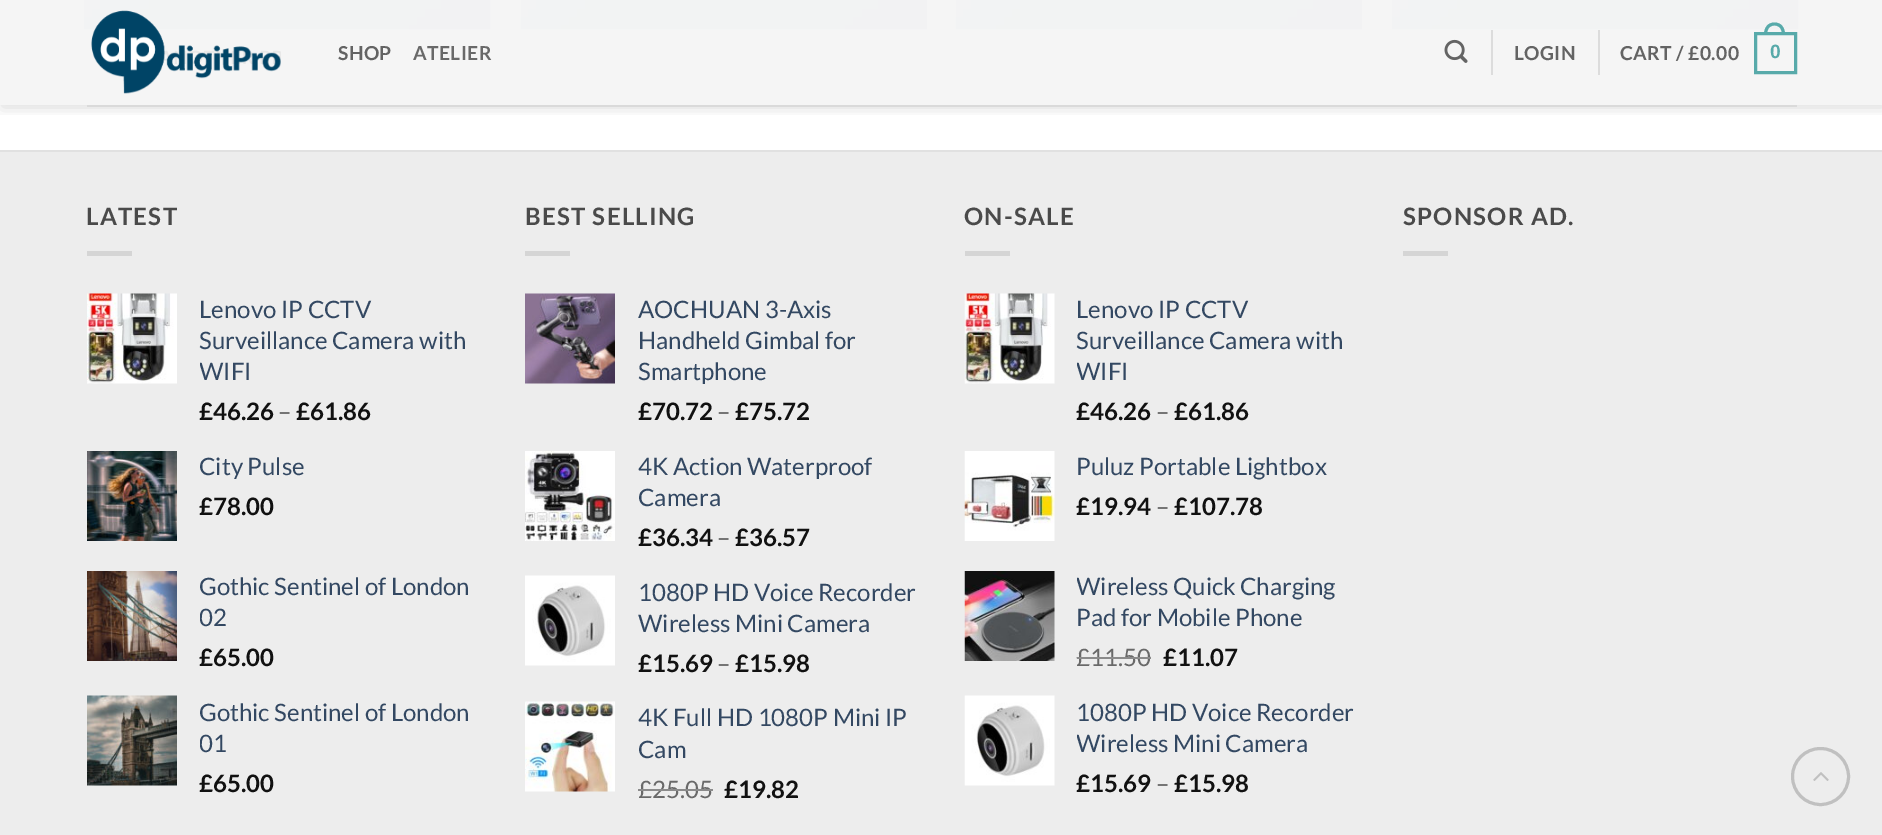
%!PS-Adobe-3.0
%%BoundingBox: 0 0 1882 835
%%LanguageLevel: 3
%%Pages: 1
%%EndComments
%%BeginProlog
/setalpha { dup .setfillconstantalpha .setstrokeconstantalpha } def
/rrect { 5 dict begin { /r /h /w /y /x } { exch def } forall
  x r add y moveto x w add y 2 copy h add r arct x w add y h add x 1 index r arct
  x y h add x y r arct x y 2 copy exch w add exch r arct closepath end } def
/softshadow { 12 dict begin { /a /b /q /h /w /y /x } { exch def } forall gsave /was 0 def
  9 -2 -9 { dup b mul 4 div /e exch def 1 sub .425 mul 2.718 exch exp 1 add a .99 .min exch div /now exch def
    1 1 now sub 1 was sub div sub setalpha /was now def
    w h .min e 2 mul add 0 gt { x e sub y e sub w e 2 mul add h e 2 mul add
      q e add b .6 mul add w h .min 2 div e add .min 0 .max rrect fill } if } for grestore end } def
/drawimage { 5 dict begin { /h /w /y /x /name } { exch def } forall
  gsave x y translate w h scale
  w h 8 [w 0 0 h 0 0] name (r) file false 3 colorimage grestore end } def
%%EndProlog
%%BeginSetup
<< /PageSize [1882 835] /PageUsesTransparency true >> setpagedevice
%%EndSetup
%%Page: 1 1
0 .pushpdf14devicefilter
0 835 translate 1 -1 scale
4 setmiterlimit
1 setgray
0 0 1882 835 rectfill
0.961 setgray
0 0 1882 105 rectfill
(images/1.raw) 84 0 407 30 drawimage
(images/2.raw) 520 0 407 30 drawimage
(images/2.raw) 955 0 407 30 drawimage
(images/1.raw) 1392 0 407 30 drawimage
gsave
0 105 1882 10 rectclip
0 setgray
2 2 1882 105 0 7.5 0.15 softshadow
grestore
(images/3.raw) 91 10 190 84 drawimage
(images/4.raw) 1444 39 24 24 drawimage
0.1 setalpha
0 setgray
1491 30 2 45 rectfill
1598 30 2 45 rectfill
1 setalpha
0.345 0.667 0.667 setrgbcolor
3 setlinewidth
1755.5 33.5 40 39 rectstroke
newpath 1774.5 22.5 moveto 1781.5 22.5 1785 28 1785 34.5 curveto 1764 34.5 lineto 1764 28 1767.5 22.5 1774.5 22.5 curveto closepath 1774.5 25.5 moveto 1780 25.5 1782 30 1782 34.5 curveto 1767 34.5 lineto 1767 30 1769 25.5 1774.5 25.5 curveto closepath eofill
0.855 setgray
87 105 1710 2 rectfill
0.929 setgray
0 152 1882 683 rectfill
0.882 setgray
0 150 1882 2 rectfill
0.835 setgray
87 251 45 5 rectfill
(images/5.raw) 87 293 90 91 drawimage
(images/6.raw) 87 451 90 90 drawimage
(images/7.raw) 87 571 90 90 drawimage
(images/8.raw) 87 695 90 91 drawimage
525 251 45 5 rectfill
(images/9.raw) 525 293 90 91 drawimage
(images/10.raw) 525 451 90 90 drawimage
(images/11.raw) 525 575 90 91 drawimage
(images/12.raw) 525 701 90 91 drawimage
965 251 45 5 rectfill
(images/13.raw) 964 293 91 91 drawimage
(images/14.raw) 964 451 91 90 drawimage
(images/15.raw) 964 571 91 90 drawimage
(images/16.raw) 964 695 91 91 drawimage
1403 251 45 5 rectfill
0.753 setgray
newpath 1820.5 776.5 28 0 360 arc closepath stroke
(images/17.raw) 1813 772 16 9 drawimage
/Lato-Bold [19.25 0 0 -19.25 0 0] selectfont
0.388 setgray
338 60 moveto 0.4 0 (SHOP) ashow
0.412 setgray
413 60 moveto 0.4 0 (ATELIER) ashow
0.388 setgray
1514 60 moveto 0.4 0 (LOGIN) ashow
1620 60 moveto 0.4 0 (CART / £0.00) ashow
/LiberationSans-Bold [19.25 0 0 -19.25 0 0] selectfont
0.345 0.667 0.667 setrgbcolor
1770 58 moveto 0.4 0 (0) ashow
/Lato-Bold [24 0 0 -24 0 0] selectfont
0.29 setgray
86 225 moveto 1.25 0 (LATEST) ashow
/Lato-Regular [24 0 0 -24 0 0] selectfont
0.2 0.282 0.384 setrgbcolor
199 318 moveto (Lenovo IP CCTV) show
199 349 moveto (Surveillance Camera with) show
gsave
200 294 280 93 rectclip
199 380 moveto (WIFI) show
grestore
/Lato-Bold [24 0 0 -24 0 0] selectfont
0.067 setgray
199 420 moveto (£46.26) show
/Lato-Regular [24 0 0 -24 0 0] selectfont
0.29 setgray
278 420 moveto (–) show
/Lato-Bold [24 0 0 -24 0 0] selectfont
0.067 setgray
296 420 moveto (£61.86) show
gsave
200 452 280 30 rectclip
/Lato-Regular [24 0 0 -24 0 0] selectfont
0.2 0.282 0.384 setrgbcolor
199 475 moveto (City Pulse) show
grestore
199 515 moveto (£78.00) show
gsave
200 572 280 61 rectclip
/Lato-Regular [24 0 0 -24 0 0] selectfont
0.2 0.282 0.384 setrgbcolor
199 595 moveto (Gothic Sentinel of London) show
199 626 moveto (02) show
grestore
199 666 moveto (£65.00) show
gsave
200 696 280 63 rectclip
/Lato-Regular [24 0 0 -24 0 0] selectfont
0.2 0.282 0.384 setrgbcolor
199 721 moveto (Gothic Sentinel of London) show
199 752 moveto (01) show
grestore
199 792 moveto (£65.00) show
0.29 setgray
525 225 moveto 1.25 0 (BEST SELLING) ashow
/Lato-Regular [24 0 0 -24 0 0] selectfont
0.2 0.282 0.384 setrgbcolor
638 318 moveto (AOCHUAN 3-Axis) show
638 349 moveto (Handheld Gimbal for) show
638 380 moveto (Smartphone) show
/Lato-Bold [24 0 0 -24 0 0] selectfont
0.067 setgray
638 420 moveto (£70.72) show
/Lato-Regular [24 0 0 -24 0 0] selectfont
0.29 setgray
717 420 moveto (–) show
/Lato-Bold [24 0 0 -24 0 0] selectfont
0.067 setgray
735 420 moveto (£75.72) show
/Lato-Regular [24 0 0 -24 0 0] selectfont
0.2 0.282 0.384 setrgbcolor
638 475 moveto (4K Action Waterproof) show
638 506 moveto (Camera) show
/Lato-Bold [24 0 0 -24 0 0] selectfont
0.067 setgray
638 546 moveto (£36.34) show
/Lato-Regular [24 0 0 -24 0 0] selectfont
0.29 setgray
717 546 moveto (–) show
/Lato-Bold [24 0 0 -24 0 0] selectfont
0.067 setgray
735 546 moveto (£36.57) show
/Lato-Regular [24 0 0 -24 0 0] selectfont
0.2 0.282 0.384 setrgbcolor
638 601 moveto (1080P HD Voice Recorder) show
638 632 moveto (Wireless Mini Camera) show
/Lato-Bold [24 0 0 -24 0 0] selectfont
0.067 setgray
638 672 moveto (£15.69) show
/Lato-Regular [24 0 0 -24 0 0] selectfont
0.29 setgray
717 672 moveto (–) show
/Lato-Bold [24 0 0 -24 0 0] selectfont
0.067 setgray
735 672 moveto (£15.98) show
/Lato-Regular [24 0 0 -24 0 0] selectfont
0.2 0.282 0.384 setrgbcolor
638 726 moveto (4K Full HD 1080P Mini IP) show
638 758 moveto (Cam) show
0.412 setgray
638 798 moveto (£25.05) show
0.545 setgray
638 789 75 2 rectfill
/Lato-Bold [24 0 0 -24 0 0] selectfont
0.067 setgray
724 798 moveto (£19.82) show
0.29 setgray
964 225 moveto 1.25 0 (ON-SALE) ashow
/Lato-Regular [24 0 0 -24 0 0] selectfont
0.2 0.282 0.384 setrgbcolor
1076 318 moveto (Lenovo IP CCTV) show
1076 349 moveto (Surveillance Camera with) show
gsave
1077 294 281 93 rectclip
1076 380 moveto (WIFI) show
grestore
/Lato-Bold [24 0 0 -24 0 0] selectfont
0.067 setgray
1076 420 moveto (£46.26) show
/Lato-Regular [24 0 0 -24 0 0] selectfont
0.29 setgray
1156 420 moveto (–) show
/Lato-Bold [24 0 0 -24 0 0] selectfont
0.067 setgray
1174 420 moveto (£61.86) show
/Lato-Regular [24 0 0 -24 0 0] selectfont
0.2 0.282 0.384 setrgbcolor
1076 475 moveto (Puluz Portable Lightbox) show
/Lato-Bold [24 0 0 -24 0 0] selectfont
0.067 setgray
1076 515 moveto (£19.94) show
/Lato-Regular [24 0 0 -24 0 0] selectfont
0.29 setgray
1156 515 moveto (–) show
/Lato-Bold [24 0 0 -24 0 0] selectfont
0.067 setgray
1174 515 moveto (£107.78) show
gsave
1077 572 281 61 rectclip
/Lato-Regular [24 0 0 -24 0 0] selectfont
0.2 0.282 0.384 setrgbcolor
1076 595 moveto (Wireless Quick Charging) show
grestore
/Lato-Regular [24 0 0 -24 0 0] selectfont
0.2 0.282 0.384 setrgbcolor
1076 626 moveto (Pad for Mobile Phone) show
0.412 setgray
1076 666 moveto (£11.50) show
0.545 setgray
1077 657 74 2 rectfill
/Lato-Bold [24 0 0 -24 0 0] selectfont
0.067 setgray
1163 666 moveto (£11.07) show
/Lato-Regular [24 0 0 -24 0 0] selectfont
0.2 0.282 0.384 setrgbcolor
1076 721 moveto (1080P HD Voice Recorder) show
gsave
1077 696 281 63 rectclip
1076 752 moveto (Wireless Mini Camera) show
grestore
/Lato-Bold [24 0 0 -24 0 0] selectfont
0.067 setgray
1076 792 moveto (£15.69) show
/Lato-Regular [24 0 0 -24 0 0] selectfont
0.29 setgray
1156 792 moveto (–) show
/Lato-Bold [24 0 0 -24 0 0] selectfont
0.067 setgray
1174 792 moveto (£15.98) show
0.29 setgray
1403 225 moveto 1.25 0 (SPONSOR AD.) ashow
.poppdf14devicefilter showpage
%%EOF
